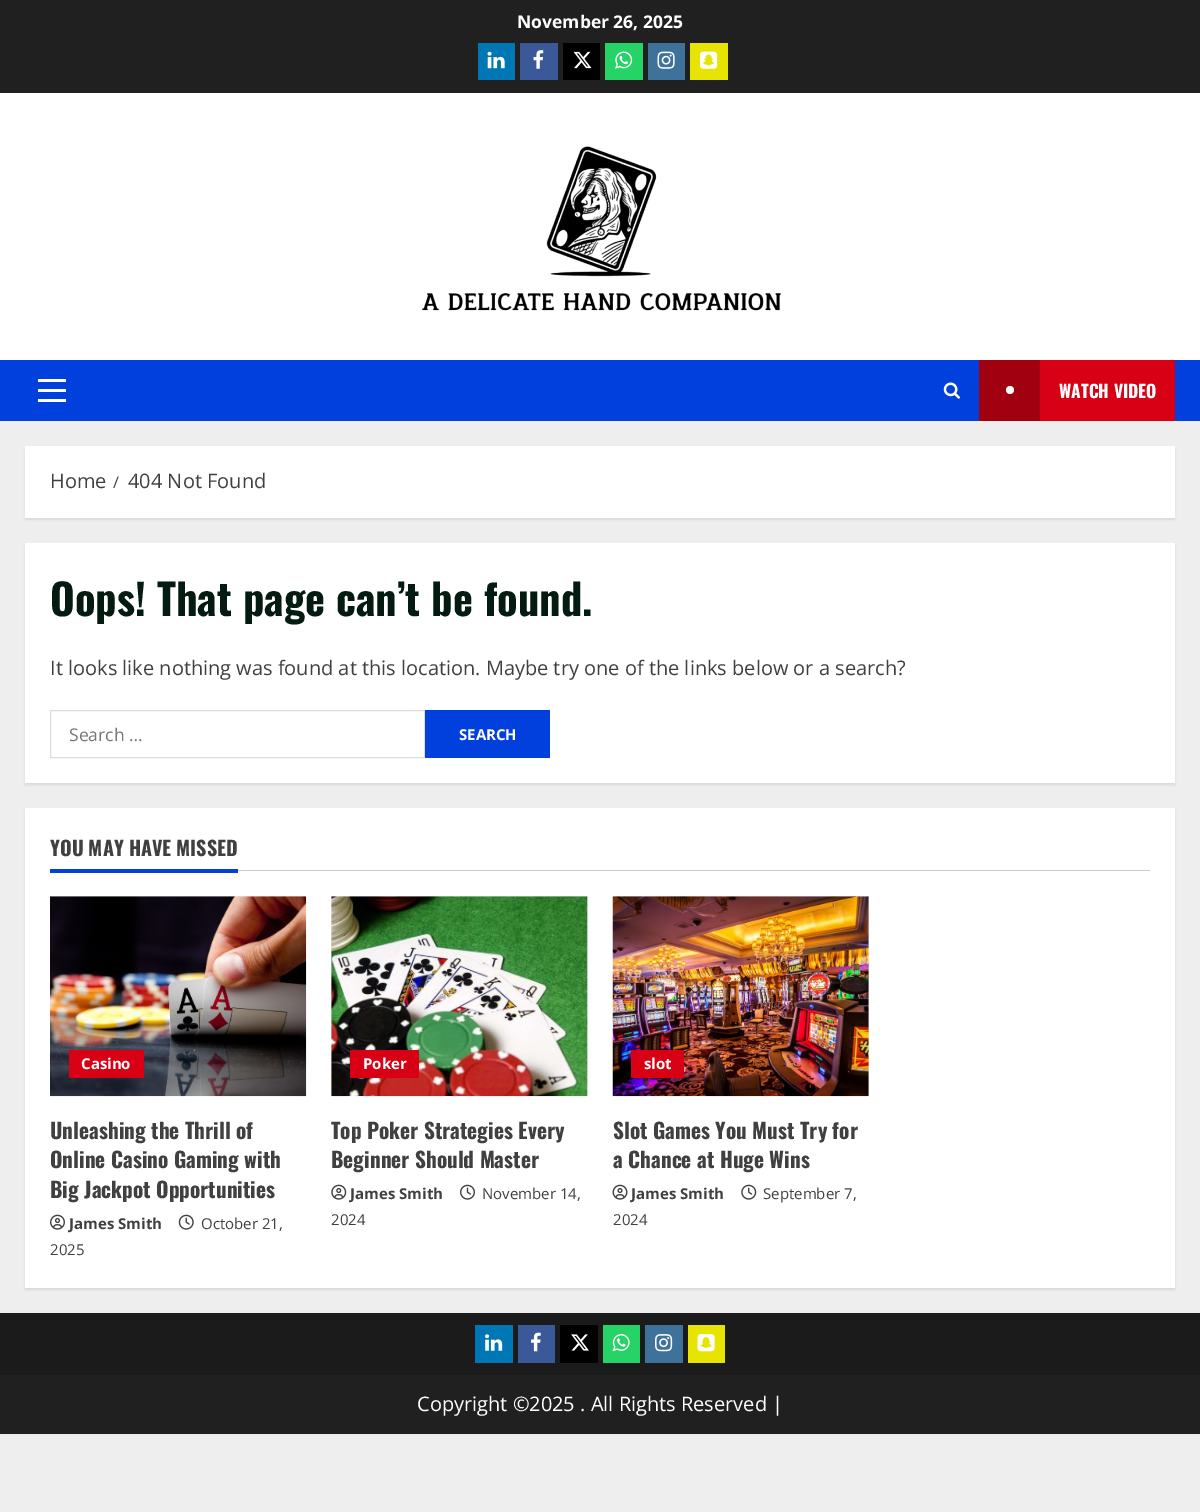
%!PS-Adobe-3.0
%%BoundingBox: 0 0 1200 1512
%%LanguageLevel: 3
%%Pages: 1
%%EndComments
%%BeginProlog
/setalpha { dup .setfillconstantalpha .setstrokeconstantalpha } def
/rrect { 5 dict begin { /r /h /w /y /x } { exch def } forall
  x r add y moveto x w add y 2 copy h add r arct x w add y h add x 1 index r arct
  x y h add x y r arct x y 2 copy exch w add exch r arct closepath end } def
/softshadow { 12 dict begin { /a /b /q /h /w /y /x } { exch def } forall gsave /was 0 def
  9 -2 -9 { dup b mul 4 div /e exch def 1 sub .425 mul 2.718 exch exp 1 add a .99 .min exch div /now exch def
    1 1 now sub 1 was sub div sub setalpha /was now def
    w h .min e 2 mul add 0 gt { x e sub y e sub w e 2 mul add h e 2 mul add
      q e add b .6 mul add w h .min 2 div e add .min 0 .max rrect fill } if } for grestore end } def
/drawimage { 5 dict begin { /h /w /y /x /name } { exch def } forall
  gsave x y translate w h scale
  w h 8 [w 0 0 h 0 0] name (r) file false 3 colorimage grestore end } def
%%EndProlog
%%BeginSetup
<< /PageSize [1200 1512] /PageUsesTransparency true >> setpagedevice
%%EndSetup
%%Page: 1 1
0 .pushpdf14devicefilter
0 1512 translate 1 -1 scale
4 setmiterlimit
0.933 setgray
0 0 1200 1512 rectfill
0.125 setgray
0 0 1200 93 rectfill
0 0.467 0.71 setrgbcolor
478 43 37 37 rectfill
(images/1.raw) 487 51 18 18 drawimage
0.231 0.349 0.6 setrgbcolor
520 43 38 37 rectfill
(images/2.raw) 533 50 11 19 drawimage
0 setgray
563 43 37 37 rectfill
(images/3.raw) 573 51 19 18 drawimage
0.145 0.827 0.4 setrgbcolor
605 43 38 37 rectfill
(images/4.raw) 615 51 18 18 drawimage
0.247 0.447 0.608 setrgbcolor
648 43 37 37 rectfill
(images/5.raw) 657 51 18 18 drawimage
0.902 0.894 0 setrgbcolor
690 43 38 37 rectfill
(images/6.raw) 700 51 18 18 drawimage
1 setgray
0 93 1200 267 rectfill
(images/7.raw) 422 146 359 165 drawimage
0.004 0.251 0.867 setrgbcolor
0 360 1200 61 rectfill
1 setgray
38 389 28 3 rectfill
38 379 28 3 rectfill
38 399 28 3 rectfill
(images/8.raw) 943 382 17 17 drawimage
0.843 0 0.082 setrgbcolor
1040 360 135 61 rectfill
0.631 0 0.063 setrgbcolor
979 360 61 61 rectfill
1 setgray
newpath 1010 390 4 0 360 arc closepath fill
0 setgray
25 449 1150 71 0 1 0.08 softshadow
1 setgray
25 446 1150 72 rectfill
0 setgray
25 545 1150 240 0 1 0.08 softshadow
1 setgray
25 543 1150 240 rectfill
0.863 setgray
50.5 710.5 374 47 rectstroke
0.004 0.251 0.867 setrgbcolor
425 710 125 48 rectfill
0 setgray
25 810 1150 480 0 1 0.08 softshadow
1 setgray
25 808 1150 480 rectfill
0.8 setgray
238 870 912 1 rectfill
0.004 0.251 0.867 setrgbcolor
50 869 188 4 rectfill
0.925 setgray
50 896 256 1 rectfill
(images/9.raw) 50 896 257 201 drawimage
0.843 0 0.082 setrgbcolor
69 1050 75 28 rectfill
(images/10.raw) 50 1214 15 16 drawimage
(images/11.raw) 178 1214 16 16 drawimage
0.925 setgray
331 896 257 200 rectfill
(images/12.raw) 331 896 257 201 drawimage
0.843 0 0.082 setrgbcolor
350 1050 69 28 rectfill
(images/13.raw) 331 1184 16 16 drawimage
(images/14.raw) 460 1184 15 16 drawimage
0.925 setgray
613 896 256 200 rectfill
(images/15.raw) 612 896 257 201 drawimage
0.843 0 0.082 setrgbcolor
631 1050 53 28 rectfill
(images/16.raw) 612 1184 16 16 drawimage
(images/17.raw) 741 1184 16 16 drawimage
0.125 setgray
0 1375 1200 59 rectfill
0.106 setgray
0 1313 1200 62 rectfill
0 0.467 0.71 setrgbcolor
475 1325 38 38 rectfill
(images/18.raw) 485 1334 18 17 drawimage
0.231 0.349 0.6 setrgbcolor
518 1325 37 38 rectfill
(images/19.raw) 531 1332 10 20 drawimage
0 setgray
560 1325 38 38 rectfill
(images/20.raw) 571 1334 18 17 drawimage
0.145 0.827 0.4 setrgbcolor
603 1325 37 38 rectfill
(images/21.raw) 612 1334 18 18 drawimage
0.247 0.447 0.608 setrgbcolor
645 1325 38 38 rectfill
(images/22.raw) 655 1334 18 18 drawimage
0.902 0.894 0 setrgbcolor
688 1325 37 38 rectfill
(images/23.raw) 697 1334 18 18 drawimage
/OpenSans-Bold [17.5 0 0 -17.5 0 0] selectfont
1 setgray
517 28 moveto (November 26, 2025) show
/Oswald-Bold [17.5 0 0 -17.5 0 0] selectfont
1059 398 moveto (WATCH VIDEO) show
/OpenSans-Regular [20 0 0 -20 0 0] selectfont
0.251 setgray
50 488 moveto (Home) show
/OpenSans-Regular [16 0 0 -16 0 0] selectfont
113 488 moveto (/) show
/OpenSans-Regular [20 0 0 -20 0 0] selectfont
128 488 moveto (404 Not Found) show
/Oswald-Bold [42.5 0 0 -42.5 0 0] selectfont
0.012 0.106 0.067 setrgbcolor
50 616 moveto (Oops! That page can’t be found.) show
/OpenSans-Regular [20 0 0 -20 0 0] selectfont
0.251 setgray
50 675 moveto (It looks like nothing was found at this location. Maybe try one of the links below or a search?) show
/OpenSans-Regular [17.5 0 0 -17.5 0 0] selectfont
0.459 setgray
69 741 moveto (Search …) show
/OpenSans-Bold [15 0 0 -15 0 0] selectfont
1 setgray
459 740 moveto (SEARCH) show
/Oswald-Bold [20 0 0 -20 0 0] selectfont
0.251 setgray
50 856 moveto (YOU MAY HAVE MISSED) show
/OpenSans-Bold [15 0 0 -15 0 0] selectfont
1 setgray
81 1069 moveto (Casino) show
/Oswald-Bold [21.25 0 0 -21.25 0 0] selectfont
0.251 setgray
50 1139 moveto (Unleashing the Thrill of) show
50 1168 moveto (Online Casino Gaming with) show
50 1198 moveto (Big Jackpot Opportunities) show
/OpenSans-Bold [15 0 0 -15 0 0] selectfont
69 1229 moveto (James Smith) show
/OpenSans-Regular [15 0 0 -15 0 0] selectfont
201 1229 moveto (October 21,) show
50 1255 moveto (2025) show
/OpenSans-Bold [15 0 0 -15 0 0] selectfont
1 setgray
363 1069 moveto (Poker) show
/Oswald-Bold [21.25 0 0 -21.25 0 0] selectfont
0.251 setgray
331 1139 moveto (Top Poker Strategies Every) show
331 1168 moveto (Beginner Should Master) show
/OpenSans-Bold [15 0 0 -15 0 0] selectfont
350 1199 moveto (James Smith) show
/OpenSans-Regular [15 0 0 -15 0 0] selectfont
482 1199 moveto (November 14,) show
331 1225 moveto (2024) show
/OpenSans-Bold [15 0 0 -15 0 0] selectfont
1 setgray
644 1069 moveto (slot) show
/Oswald-Bold [21.25 0 0 -21.25 0 0] selectfont
0.251 setgray
613 1139 moveto (Slot Games You Must Try for) show
613 1168 moveto (a Chance at Huge Wins) show
/OpenSans-Bold [15 0 0 -15 0 0] selectfont
631 1199 moveto (James Smith) show
/OpenSans-Regular [15 0 0 -15 0 0] selectfont
763 1199 moveto (September 7,) show
613 1225 moveto (2024) show
/OpenSans-Regular [20 0 0 -20 0 0] selectfont
1 setgray
417 1411 moveto (Copyright ©2025 . All Rights Reserved |) show
.poppdf14devicefilter showpage
%%EOF
